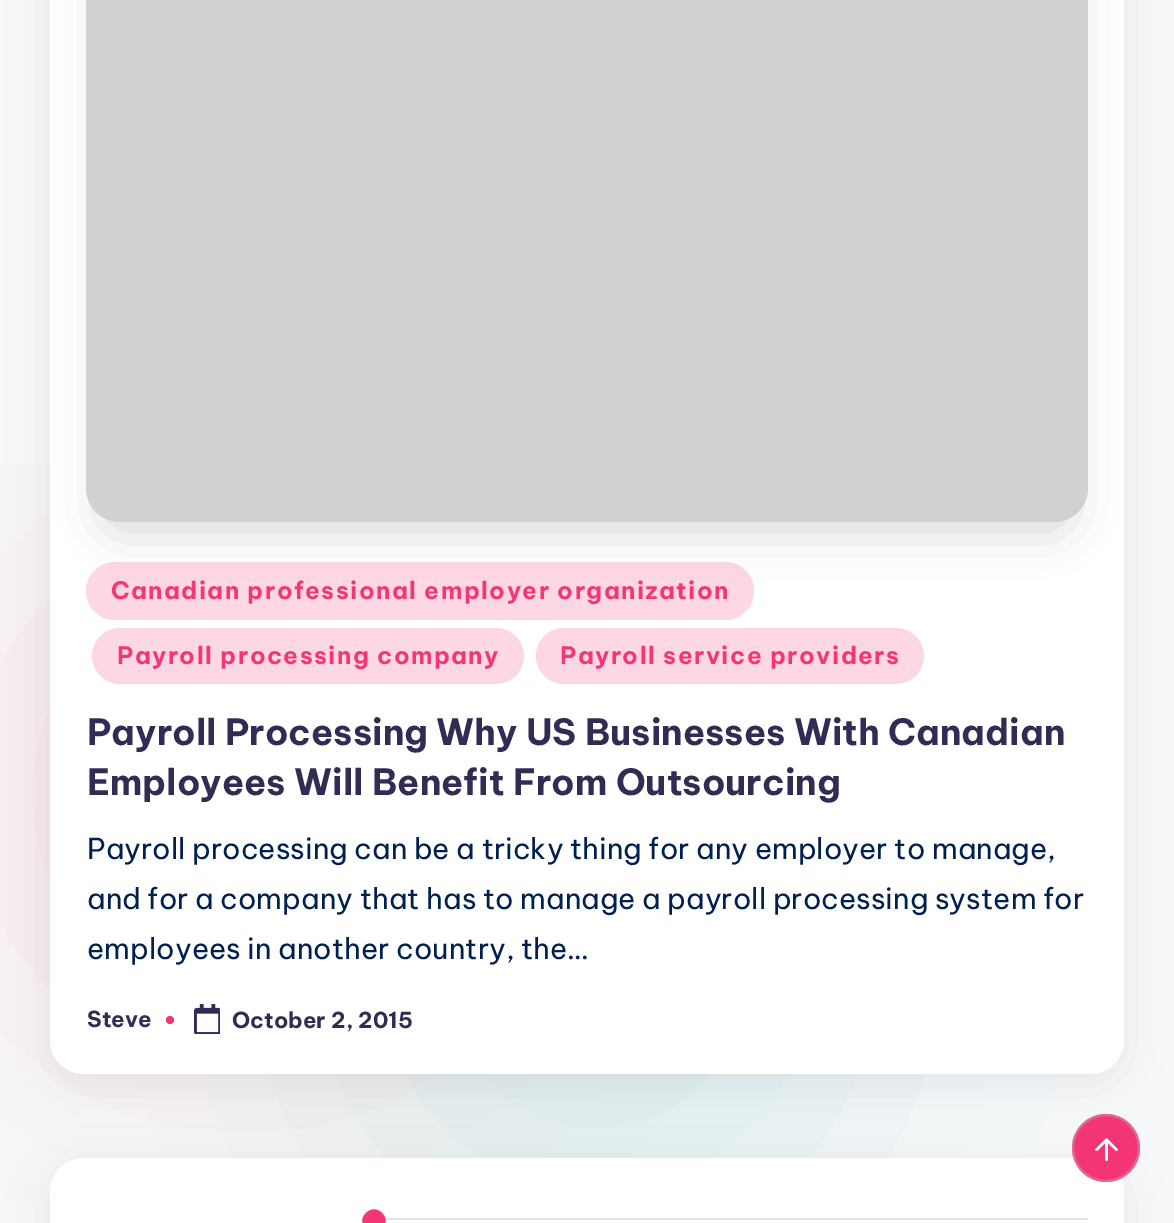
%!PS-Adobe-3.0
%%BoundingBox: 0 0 1174 1223
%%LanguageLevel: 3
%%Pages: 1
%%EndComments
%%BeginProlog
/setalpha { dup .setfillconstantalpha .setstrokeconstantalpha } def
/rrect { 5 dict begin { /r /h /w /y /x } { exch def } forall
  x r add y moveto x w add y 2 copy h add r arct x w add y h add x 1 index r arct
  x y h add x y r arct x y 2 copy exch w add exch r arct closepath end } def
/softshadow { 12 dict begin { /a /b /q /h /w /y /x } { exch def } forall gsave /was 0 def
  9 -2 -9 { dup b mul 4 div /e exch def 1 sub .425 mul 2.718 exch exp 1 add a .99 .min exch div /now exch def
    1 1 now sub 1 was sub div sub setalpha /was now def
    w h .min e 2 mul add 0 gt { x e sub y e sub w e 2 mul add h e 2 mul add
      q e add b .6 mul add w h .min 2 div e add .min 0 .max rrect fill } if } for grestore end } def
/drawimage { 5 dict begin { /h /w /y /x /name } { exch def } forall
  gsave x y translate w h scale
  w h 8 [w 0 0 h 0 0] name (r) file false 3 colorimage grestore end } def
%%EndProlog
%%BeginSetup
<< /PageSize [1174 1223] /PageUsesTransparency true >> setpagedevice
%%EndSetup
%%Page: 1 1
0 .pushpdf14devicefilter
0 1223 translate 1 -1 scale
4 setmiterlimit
0.969 0.973 0.976 setrgbcolor
0 0 1174 1223 rectfill
gsave
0 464 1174 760 rectclip
0.969 0.89 0.898 setrgbcolor
0 550 488 488 244 128 1 softshadow
grestore
0.016 0.525 0.545 setrgbcolor
352 736 490 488 244 128 0.1 softshadow
0.271 0.263 0.376 setrgbcolor
50 -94 1074 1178 34 20 0.1 softshadow
1 setgray
50 -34 1074 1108 34 rrect fill
0.992 0.843 0.894 setrgbcolor
86 562 668 58 29 rrect fill
0 setgray
106 -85 962 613 14 23.5 0.18 softshadow
0.82 setgray
86 -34 1002 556 34 rrect fill
0.992 0.843 0.894 setrgbcolor
92 628 432 56 28 rrect fill
536 628 388 56 28 rrect fill
0.957 0.212 0.463 setrgbcolor
newpath 170 1020 4 0 360 arc closepath fill
(images/1.raw) 194 1004 26 30 drawimage
0.271 0.263 0.376 setrgbcolor
50 1168 1074 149 34 20 0.1 softshadow
1 setgray
50 1158 1074 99 34 rrect fill
0.89 setgray
362 1218 726 2 rectfill
0.957 0.212 0.463 setrgbcolor
newpath 366 1213 moveto 376.5 1202 393 1218.5 382 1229 curveto 371.5 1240 355 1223.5 366 1213 curveto closepath fill
newpath 1106 1148 34 0 360 arc closepath fill
0.4 setalpha
0.725 setgray
2 setlinewidth
newpath 1106 1148 33 0 360 arc closepath stroke
1 setalpha
(images/2.raw) 1095 1138 23 23 drawimage
/BeVietnamPro-Bold [24 0 0 -24 0 0] selectfont
0.957 0.212 0.463 setrgbcolor
111 599 moveto 1.45 0 (Canadian professional employer organization) ashow
117 664 moveto 1.45 0 (Payroll processing company) ashow
560 664 moveto 1.45 0 (Payroll service providers) ashow
/BeVietnamPro-Bold [36 0 0 -36 0 0] selectfont
0.188 0.176 0.333 setrgbcolor
87 745 moveto (Payroll Processing Why US Businesses With Canadian) show
87 795 moveto (Employees Will Benefit From Outsourcing) show
/BeVietnamPro-Regular [28.85 0 0 -28.85 0 0] selectfont
0 0.125 0.314 setrgbcolor
87 859 moveto (Payroll processing can be a tricky thing for any employer to manage,) show
87 909 moveto (and for a company that has to manage a payroll processing system for) show
87 959 moveto (employees in another country, the…) show
/BeVietnamPro-Bold [22 0 0 -22 0 0] selectfont
0.188 0.176 0.333 setrgbcolor
87 1027 moveto (Steve) show
232 1028 moveto (October 2, 2015) show
.poppdf14devicefilter showpage
%%EOF
